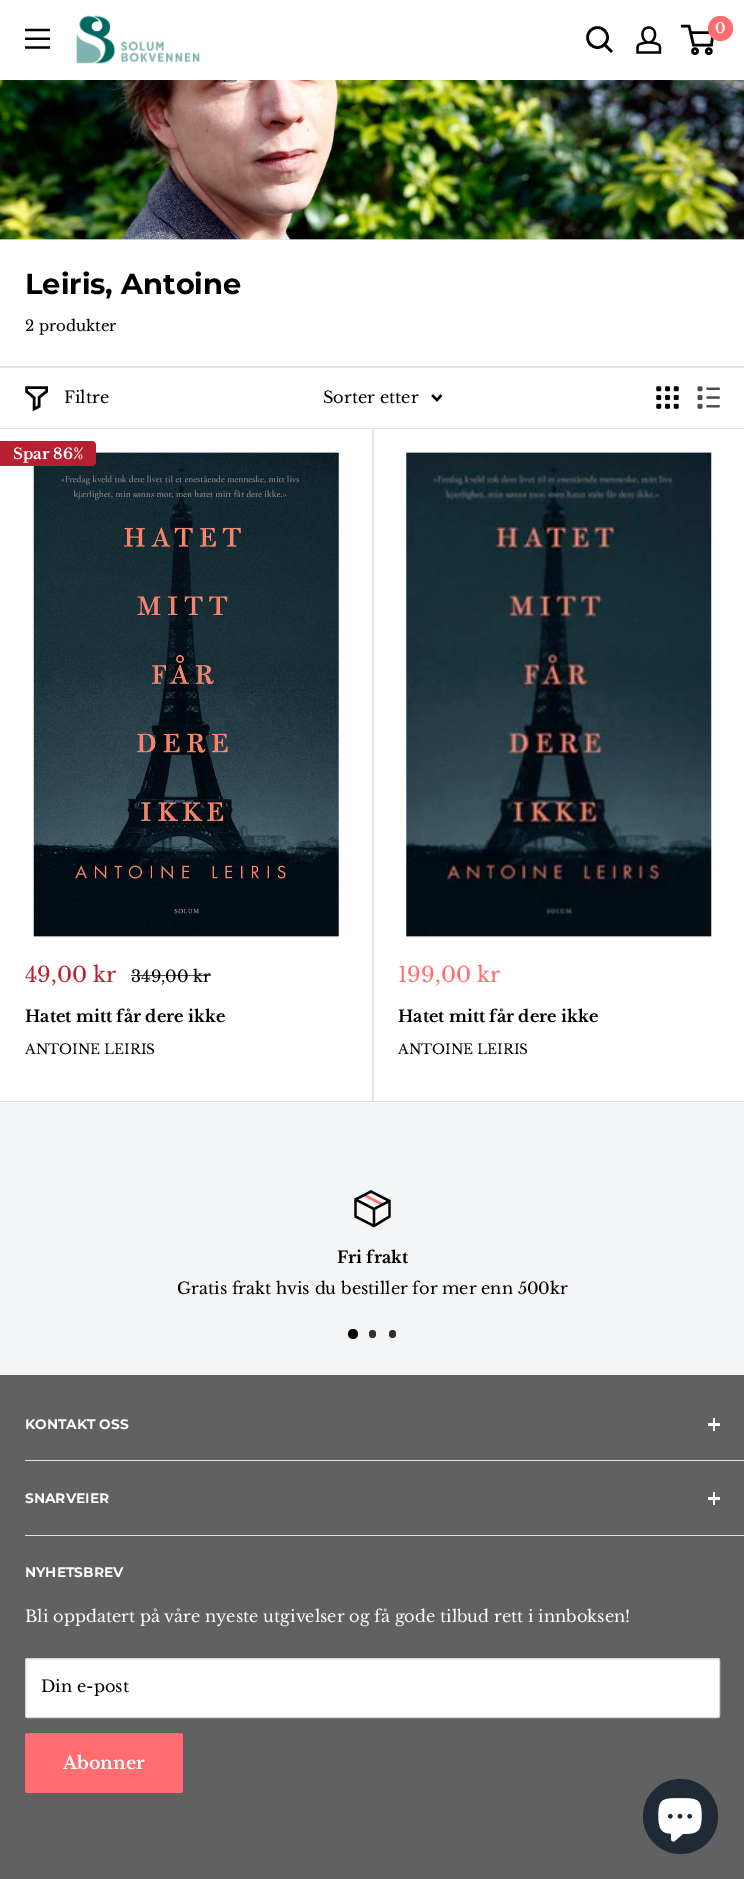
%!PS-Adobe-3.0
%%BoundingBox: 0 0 744 1879
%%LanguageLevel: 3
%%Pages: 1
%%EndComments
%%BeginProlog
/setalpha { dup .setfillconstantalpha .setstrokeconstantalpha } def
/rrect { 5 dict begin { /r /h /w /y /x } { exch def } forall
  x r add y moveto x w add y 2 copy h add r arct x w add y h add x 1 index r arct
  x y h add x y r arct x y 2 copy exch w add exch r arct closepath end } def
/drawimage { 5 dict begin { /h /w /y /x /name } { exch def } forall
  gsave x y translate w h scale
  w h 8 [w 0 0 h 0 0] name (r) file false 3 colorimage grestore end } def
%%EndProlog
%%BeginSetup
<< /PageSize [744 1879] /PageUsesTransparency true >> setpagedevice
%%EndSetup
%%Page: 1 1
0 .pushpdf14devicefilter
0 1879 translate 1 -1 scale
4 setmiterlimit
0.953 0.961 0.965 setrgbcolor
0 0 744 1879 rectfill
1 setgray
0 0 744 80 rectfill
(images/1.raw) 25 28 25 21 drawimage
(images/2.raw) 76 15 124 49 drawimage
0 setgray
2.6 setlinewidth
2 setlinecap
newpath 611 51 moveto 604.5 44.5 lineto stroke
0 setlinecap
newpath 597.5 37.5 10 0 360 arc closepath stroke
(images/3.raw) 636 26 26 28 drawimage
2.5 setlinewidth
newpath 695 51.2 2.5 0 360 arc closepath stroke
newpath 708.8 51.2 2.5 0 360 arc closepath stroke
newpath 690.5 32.5 moveto 713 32.5 lineto 711.5 45 lineto 693.5 45 lineto 689 26 lineto 681 26 lineto stroke
1 0.427 0.439 setrgbcolor
newpath 720.5 28.5 12.5 0 360 arc closepath fill
0.882 0.89 0.894 setrgbcolor
0 239 744 1 rectfill
(images/4.raw) 0 80 744 160 drawimage
1 setgray
0 240 744 863 rectfill
0.882 0.89 0.894 setrgbcolor
0 1101 744 1 rectfill
0 366 744 2 rectfill
372 428 2 673 rectfill
0 428 744 1 rectfill
0 setgray
2 setlinecap
newpath 46.5 391.5 moveto 39 397.5 lineto 39 406.5 lineto 34 409 lineto 34 397.5 lineto 26.5 391.5 lineto 26.5 387.5 lineto 46.5 387.5 lineto closepath stroke
2.3 setlinewidth
newpath 440.5 396 moveto 437 400 lineto 433 396 lineto stroke
(images/5.raw) 656 386 23 23 drawimage
(images/6.raw) 697 386 23 23 drawimage
(images/7.raw) 33 452 306 485 drawimage
0.718 0.125 0.2 setrgbcolor
newpath 0 441 moveto 92 441 lineto 94 441 96 443 96 445 curveto 96 462 lineto 96 464 94 466 92 466 curveto 0 466 lineto closepath fill
(images/8.raw) 406 452 306 485 drawimage
1 0.427 0.439 setrgbcolor
0 setlinecap
newpath 364 1195 moveto 382.5 1204.5 lineto stroke
0 setgray
newpath 389.5 1201 moveto 374 1209 lineto 355.5 1199.5 lineto 374 1209 moveto 374 1226 lineto stroke
2 setlinecap
newpath 389.5 1201 moveto 389.5 1216.5 lineto 374 1226 lineto 355.5 1216.5 lineto 355.5 1199.5 lineto 371 1191.5 lineto closepath stroke
newpath 353 1334 5 0 360 arc closepath fill
0.192 setgray
369 1330 7 8 3.5 rrect fill
389 1330 7 8 3.5 rrect fill
0.38 setgray
0 1375 744 504 rectfill
0.882 0.89 0.894 setrgbcolor
25 1460 719 1 rectfill
1 setgray
713 1418 2 13 rectfill
708 1423 12 3 rectfill
0.882 0.89 0.894 setrgbcolor
25 1535 719 1 rectfill
1 setgray
713 1492 2 13 rectfill
708 1497 12 3 rectfill
25 1658 695 60 2.5 rrect fill
0.973 setgray
newpath 28 1660 moveto 718 1660 lineto 719 1661 lineto 719 1660 719 1659 718 1659 curveto 27 1659 lineto 26 1659 26 1660 26 1661 curveto closepath fill
0.831 0.839 0.847 setrgbcolor
1 setlinewidth
0 setlinecap
25.5 1658.5 694 59 2 rrect stroke
1 0.427 0.439 setrgbcolor
25 1733 158 60 2.5 rrect fill
0.125 0.165 0.212 setrgbcolor
newpath 680.5 1816.5 37.5 0 360 arc closepath fill
(images/9.raw) 658 1798 44 44 drawimage
/LibreBaskerville-Bold [14 0 0 -14 0 0] selectfont
1 setgray
715 33 moveto (0) show
/Montserrat-Bold [28.75 0 0 -28.75 0 0] selectfont
0 setgray
25 294 moveto (Leiris, Antoine) show
/LibreBaskerville-Regular [15 0 0 -15 0 0] selectfont
25 331 moveto (2 produkter) show
/LibreBaskerville-Regular [16.25 0 0 -16.25 0 0] selectfont
64 403 moveto (Filtre) show
323 403 moveto (Sorter etter) show
/LibreBaskerville-Bold [15 0 0 -15 0 0] selectfont
1 setgray
13 459 moveto (Spar 86%) show
/LibreBaskerville-Regular [21.25 0 0 -21.25 0 0] selectfont
0.718 0.125 0.2 setrgbcolor
25 982 moveto (49,00 kr) show
/LibreBaskerville-Regular [16.25 0 0 -16.25 0 0] selectfont
0 setgray
131 982 moveto (349,00 kr) show
0.7 setalpha
131 975 80 1 rectfill
/LibreBaskerville-Bold [16.25 0 0 -16.25 0 0] selectfont
1 setalpha
25 1022 moveto (Hatet mitt får dere ikke) show
/LibreBaskerville-Regular [13.75 0 0 -13.75 0 0] selectfont
25 1054 moveto (ANTOINE LEIRIS) show
/LibreBaskerville-Regular [21.25 0 0 -21.25 0 0] selectfont
1 0.427 0.439 setrgbcolor
398 982 moveto (199,00 kr) show
/LibreBaskerville-Bold [16.25 0 0 -16.25 0 0] selectfont
0 setgray
398 1022 moveto (Hatet mitt får dere ikke) show
/LibreBaskerville-Regular [13.75 0 0 -13.75 0 0] selectfont
398 1054 moveto (ANTOINE LEIRIS) show
/LibreBaskerville-Bold [16.25 0 0 -16.25 0 0] selectfont
337 1263 moveto (Fri frakt) show
/LibreBaskerville-Regular [16.25 0 0 -16.25 0 0] selectfont
177 1294 moveto (Gratis frakt hvis du bestiller for mer enn 500kr) show
/Montserrat-Bold [13.75 0 0 -13.75 0 0] selectfont
1 setgray
25 1429 moveto (KONTAKT OSS) show
25 1503 moveto (SNARVEIER) show
25 1577 moveto (NYHETSBREV) show
/LibreBaskerville-Regular [16.25 0 0 -16.25 0 0] selectfont
25 1622 moveto (Bli oppdatert på våre nyeste utgivelser og få gode tilbud rett i innboksen!) show
0 setgray
41 1692 moveto (Din e-post) show
/LibreBaskerville-Bold [17.5 0 0 -17.5 0 0] selectfont
1 setgray
63 1769 moveto (Abonner) show
.poppdf14devicefilter showpage
%%EOF
